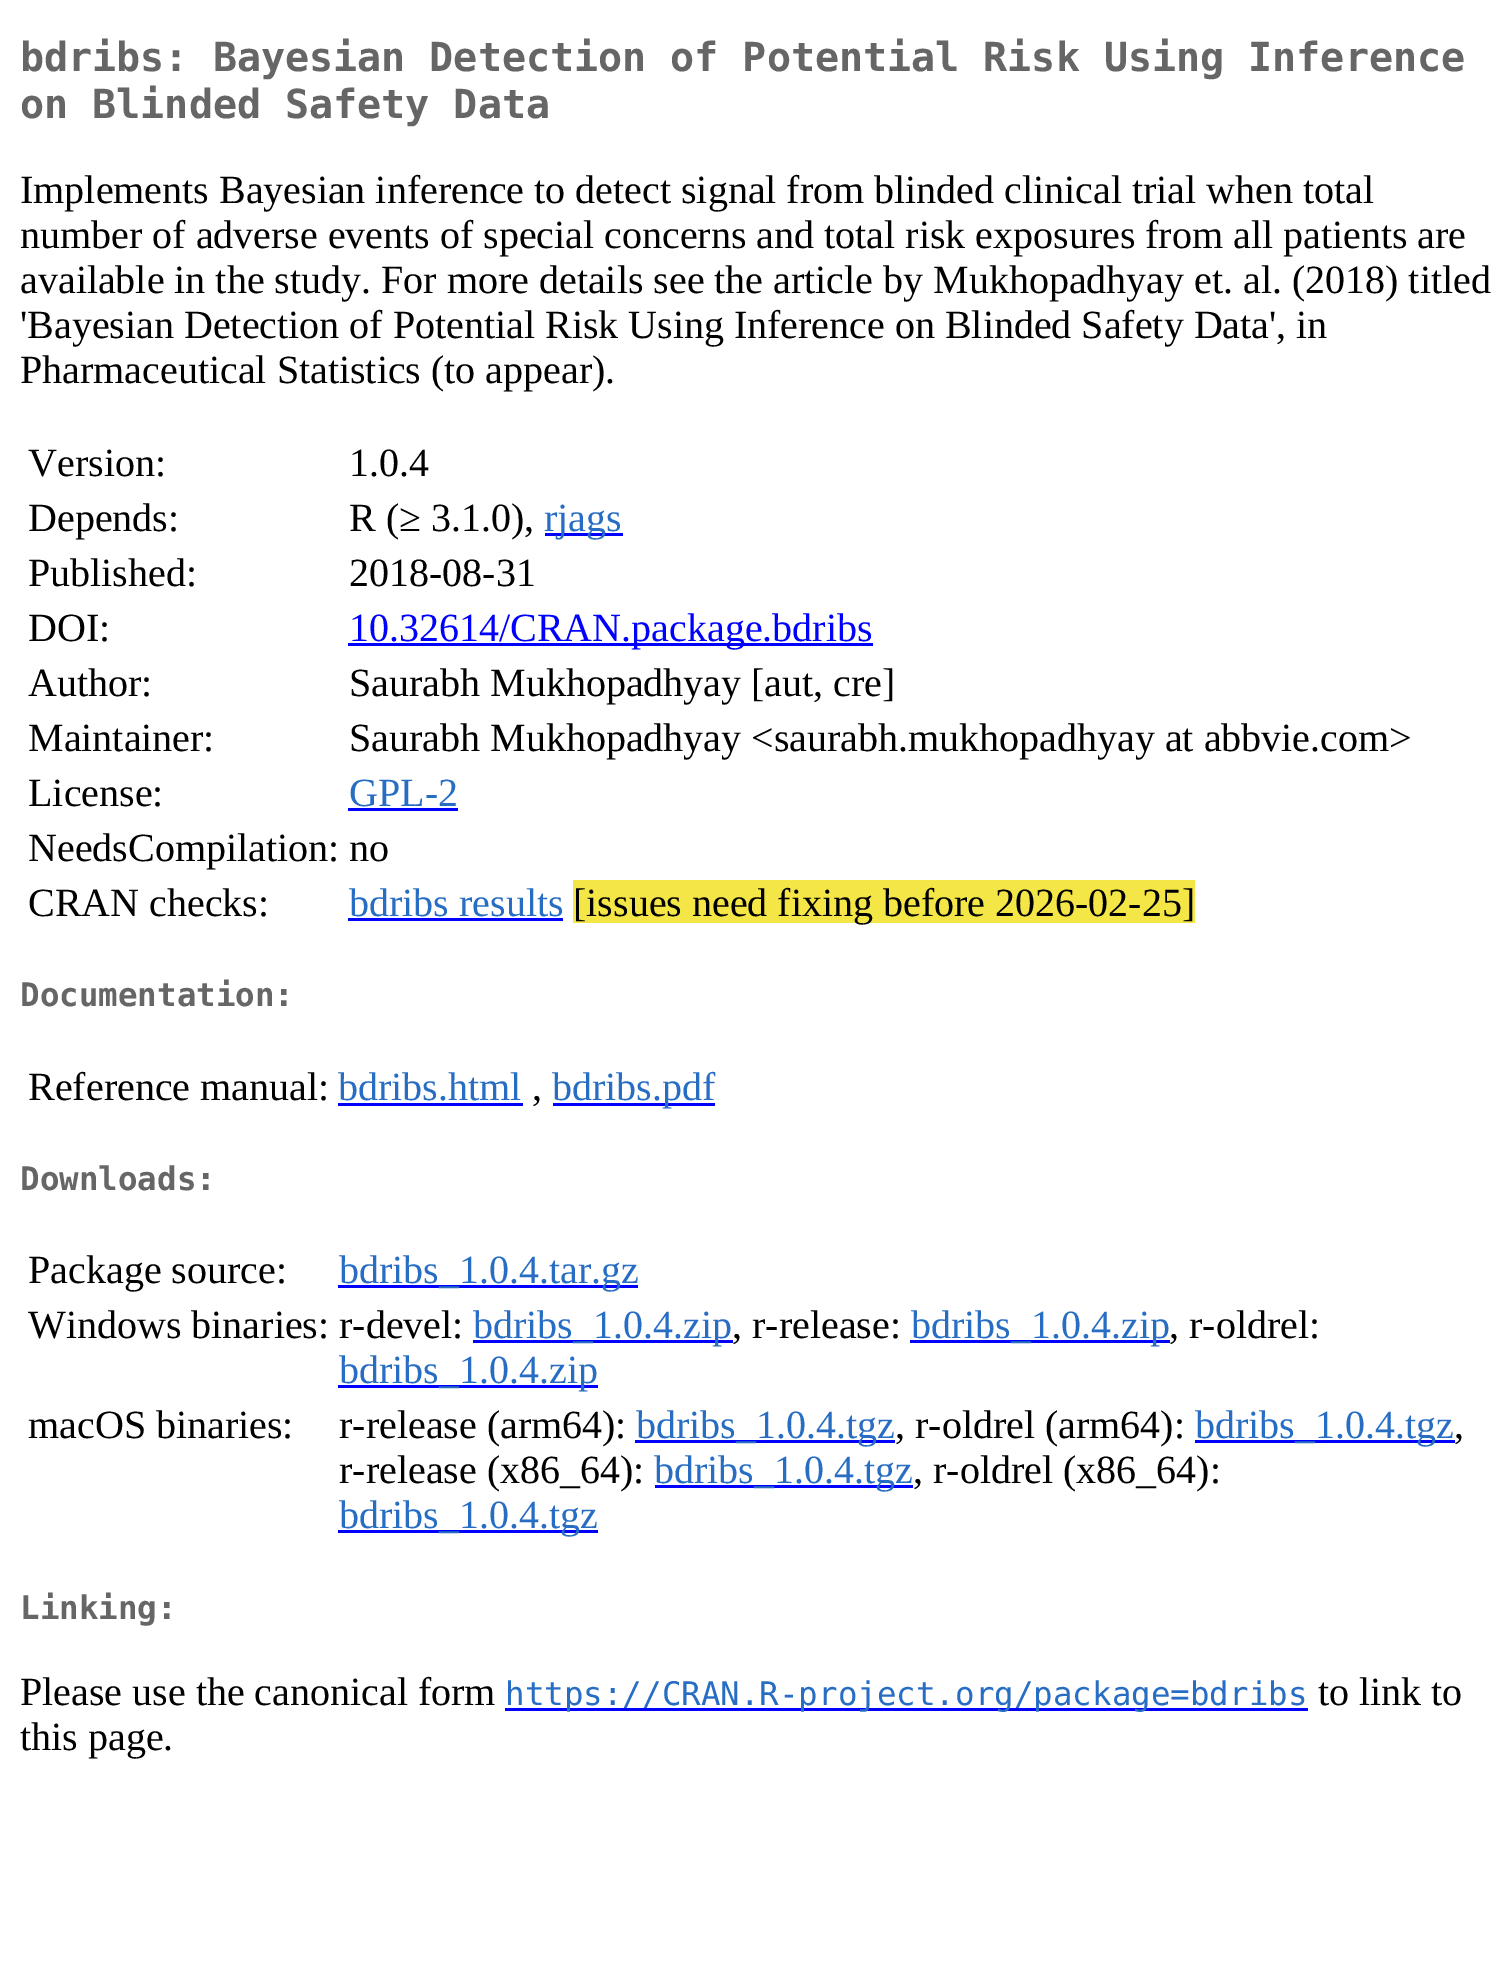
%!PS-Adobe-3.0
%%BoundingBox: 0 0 1511 1984
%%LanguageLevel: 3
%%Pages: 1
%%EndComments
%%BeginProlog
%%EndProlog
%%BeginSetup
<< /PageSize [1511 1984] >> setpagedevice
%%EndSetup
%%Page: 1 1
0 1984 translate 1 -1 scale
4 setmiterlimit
1 setgray
0 0 1511 1984 rectfill
0 0 1 setrgbcolor
545 533 78 3 rectfill
348 643 525 3 rectfill
348 808 110 3 rectfill
348 918 215 3 rectfill
0.957 0.902 0.275 setrgbcolor
573 880 622 43 rectfill
0 0 1 setrgbcolor
338 1103 185 3 rectfill
553 1103 162 3 rectfill
338 1285 300 3 rectfill
473 1340 260 3 rectfill
910 1340 260 3 rectfill
338 1385 260 3 rectfill
635 1440 260 3 rectfill
1195 1440 260 3 rectfill
655 1485 258 3 rectfill
338 1530 260 3 rectfill
505 1708 803 3 rectfill
/DejaVuSansMono-Bold [40 0 0 -40 0 0] selectfont
0.4 setgray
20 71 moveto (bdribs: Bayesian Detection of Potential Risk Using Inference) show
20 118 moveto (on Blinded Safety Data) show
/LiberationSerif-Regular [40 0 0 -40 0 0] selectfont
0 setgray
20 203 moveto (Implements Bayesian inference to detect signal from blinded clinical trial when total) show
20 248 moveto (number of adverse events of special concerns and total risk exposures from all patients are) show
20 293 moveto (available in the study. For more details see the article by Mukhopadhyay et. al. \(2018\) titled) show
20 338 moveto ('Bayesian Detection of Potential Risk Using Inference on Blinded Safety Data', in) show
20 383 moveto (Pharmaceutical Statistics \(to appear\).) show
28 476 moveto (Version:) show
349 476 moveto (1.0.4) show
28 531 moveto (Depends:) show
349 531 moveto (R \(≥ 3.1.0\),) show
0.153 0.427 0.765 setrgbcolor
544 531 moveto (rjags) show
0 setgray
28 586 moveto (Published:) show
349 586 moveto (2018-08-31) show
28 641 moveto (DOI:) show
0 0 1 setrgbcolor
349 641 moveto (10.32614/CRAN.package.bdribs) show
0 setgray
28 696 moveto (Author:) show
349 696 moveto (Saurabh Mukhopadhyay [aut, cre]) show
28 751 moveto (Maintainer:) show
349 751 moveto (Saurabh Mukhopadhyay <saurabh.mukhopadhyay at abbvie.com>) show
28 806 moveto (License:) show
0.153 0.427 0.765 setrgbcolor
349 806 moveto (GPL-2) show
0 setgray
28 861 moveto (NeedsCompilation: no) show
28 916 moveto (CRAN checks:) show
0.153 0.427 0.765 setrgbcolor
349 916 moveto (bdribs results) show
0 setgray
573 916 moveto ([issues need fixing before 2026-02-25]) show
/DejaVuSansMono-Bold [32.5 0 0 -32.5 0 0] selectfont
0.4 setgray
20 1006 moveto (Documentation:) show
/LiberationSerif-Regular [40 0 0 -40 0 0] selectfont
0 setgray
28 1100 moveto (Reference manual:) show
0.153 0.427 0.765 setrgbcolor
338 1100 moveto (bdribs.html) show
0 setgray
532 1100 moveto (,) show
0.153 0.427 0.765 setrgbcolor
552 1100 moveto (bdribs.pdf) show
/DejaVuSansMono-Bold [32.5 0 0 -32.5 0 0] selectfont
0.4 setgray
20 1190 moveto (Downloads:) show
/LiberationSerif-Regular [40 0 0 -40 0 0] selectfont
0 setgray
28 1283 moveto (Package source:) show
0.153 0.427 0.765 setrgbcolor
339 1283 moveto (bdribs_1.0.4.tar.gz) show
0 setgray
28 1338 moveto (Windows binaries: r-devel:) show
0.153 0.427 0.765 setrgbcolor
473 1338 moveto (bdribs_1.0.4.zip) show
0 setgray
732 1338 moveto (, r-release:) show
0.153 0.427 0.765 setrgbcolor
911 1338 moveto (bdribs_1.0.4.zip) show
0 setgray
1169 1338 moveto (, r-oldrel:) show
0.153 0.427 0.765 setrgbcolor
339 1383 moveto (bdribs_1.0.4.zip) show
0 setgray
28 1438 moveto (macOS binaries:) show
339 1438 moveto (r-release \(arm64\):) show
0.153 0.427 0.765 setrgbcolor
636 1438 moveto (bdribs_1.0.4.tgz) show
0 setgray
895 1438 moveto (, r-oldrel \(arm64\):) show
0.153 0.427 0.765 setrgbcolor
1195 1438 moveto (bdribs_1.0.4.tgz) show
0 setgray
1454 1438 moveto (,) show
339 1483 moveto (r-release \(x86_64\):) show
0.153 0.427 0.765 setrgbcolor
654 1483 moveto (bdribs_1.0.4.tgz) show
0 setgray
913 1483 moveto (, r-oldrel \(x86_64\):) show
0.153 0.427 0.765 setrgbcolor
339 1528 moveto (bdribs_1.0.4.tgz) show
/DejaVuSansMono-Bold [32.5 0 0 -32.5 0 0] selectfont
0.4 setgray
20 1619 moveto (Linking:) show
/LiberationSerif-Regular [40 0 0 -40 0 0] selectfont
0 setgray
20 1705 moveto (Please use the canonical form) show
/DejaVuSansMono-Regular [32.5 0 0 -32.5 0 0] selectfont
0.153 0.427 0.765 setrgbcolor
505 1705 moveto (https://CRAN.R-project.org/package=bdribs) show
/LiberationSerif-Regular [40 0 0 -40 0 0] selectfont
0 setgray
1318 1705 moveto (to link to) show
20 1750 moveto (this page.) show
showpage
%%EOF
